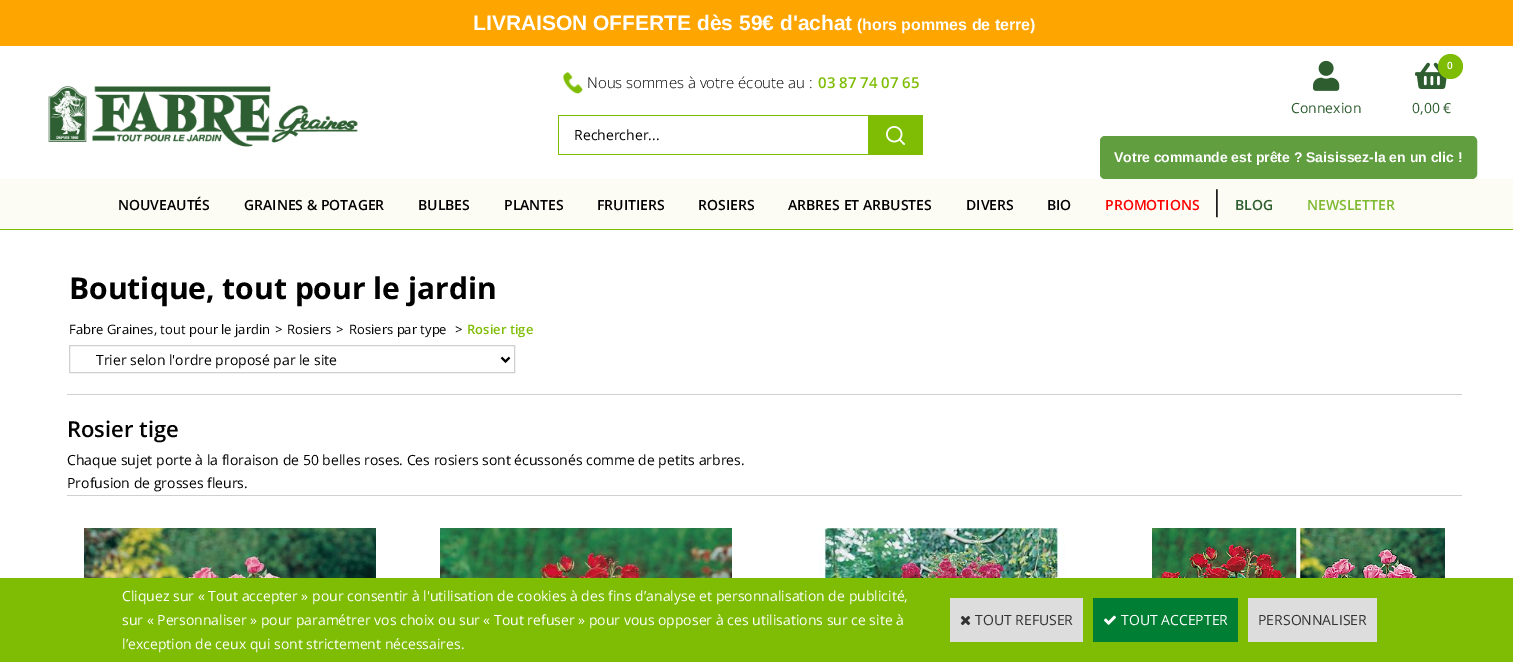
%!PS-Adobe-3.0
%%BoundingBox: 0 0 1513 662
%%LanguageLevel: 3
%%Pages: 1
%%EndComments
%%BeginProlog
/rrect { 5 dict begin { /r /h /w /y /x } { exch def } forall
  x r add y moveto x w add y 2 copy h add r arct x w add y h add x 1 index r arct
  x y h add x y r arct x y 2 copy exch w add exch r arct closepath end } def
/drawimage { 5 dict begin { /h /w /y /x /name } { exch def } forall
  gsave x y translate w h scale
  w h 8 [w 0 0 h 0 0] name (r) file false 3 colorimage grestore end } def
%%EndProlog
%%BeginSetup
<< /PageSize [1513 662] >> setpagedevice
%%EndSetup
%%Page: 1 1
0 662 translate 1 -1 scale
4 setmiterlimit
1 setgray
0 0 1513 662 rectfill
1 0.647 0 setrgbcolor
0 0 1513 46 rectfill
(images/1.raw) 48 86 310 61 drawimage
(images/2.raw) 563 72 20 22 drawimage
0.494 0.741 0.012 setrgbcolor
558 115 310 1 rectfill
558 154 310 1 rectfill
558 115 1 40 rectfill
868 115 55 40 rectfill
(images/3.raw) 886 126 19 19 drawimage
(images/4.raw) 1313 60 27 31 drawimage
(images/5.raw) 1415 62 32 27 drawimage
newpath 1450.5 66.5 12.5 0 360 arc closepath fill
0.376 0.62 0.247 setrgbcolor
1101 137 375 41 4 rrect gsave fill grestore
2 setlinewidth
stroke
0.988 0.984 0.957 setrgbcolor
0 179 1513 50 rectfill
0.494 0.741 0.012 setrgbcolor
0 229 1513 1 rectfill
(images/6.raw) 1216 189 2 29 drawimage
0.816 setgray
67 394 1395 1 rectfill
1 setlinewidth
69.5 345.5 445 27 rectstroke
0 setgray
2 setlinewidth
newpath 501.5 357.5 moveto 505.5 361.5 lineto 509.5 357.5 lineto stroke
0.816 setgray
67 495 1395 1 rectfill
(images/7.raw) 84 528 292 50 drawimage
(images/8.raw) 440 528 292 50 drawimage
(images/9.raw) 819 528 246 50 drawimage
(images/10.raw) 1152 528 293 50 drawimage
0.494 0.741 0.012 setrgbcolor
0 578 1513 84 rectfill
0.867 setgray
950 598 133 44 rectfill
(images/11.raw) 960 615 11 11 drawimage
0 0.494 0.2 setrgbcolor
1093 598 145 44 rectfill
(images/12.raw) 1104 615 12 10 drawimage
0.867 setgray
1248 598 129 44 rectfill
/LiberationSans-Bold [21 0 0 -21 0 0] selectfont
1 setgray
473 30 moveto (LIVRAISON OFFERTE dès 59€ d'achat) show
/LiberationSans-Bold [16 0 0 -16 0 0] selectfont
857 30 moveto (\(hors pommes de terre\)) show
/OpenSans-Light [15 0 0 -15 0 0] selectfont
0 setgray
587 88 moveto (Nous sommes à votre écoute au :) show
/OpenSans-SemiBold [15 0 0 -15 0 0] selectfont
0.494 0.741 0.012 setrgbcolor
818 88 moveto (03 87 74 07 65) show
/OpenSans-Regular [14 0 0 -14 0 0] selectfont
0 setgray
574 140 moveto (Rechercher...) show
0.18 0.365 0.184 setrgbcolor
1291 113 moveto (Connexion) show
/OpenSans-SemiBold [10 0 0 -10 0 0] selectfont
1 setgray
1447 69 moveto (0) show
/OpenSans-Regular [14 0 0 -14 0 0] selectfont
0.18 0.365 0.184 setrgbcolor
1412 113 moveto (0,00 €) show
/LiberationSans-Bold [14 0 0 -14 0 0] selectfont
1 setgray
1114 162 moveto (Votre commande est prête ? Saisissez-la en un clic !) show
/OpenSans-SemiBold [14 0 0 -14 0 0] selectfont
0 setgray
118 210 moveto (NOUVEAUTÉS) show
244 210 moveto (GRAINES & POTAGER) show
418 210 moveto (BULBES) show
504 210 moveto (PLANTES) show
597 210 moveto (FRUITIERS) show
698 210 moveto (ROSIERS) show
788 210 moveto (ARBRES ET ARBUSTES) show
966 210 moveto (DIVERS) show
1047 210 moveto (BIO) show
1 0 0 setrgbcolor
1105 210 moveto (PROMOTIONS) show
0.18 0.365 0.184 setrgbcolor
1235 210 moveto (BLOG) show
0.498 0.729 0.192 setrgbcolor
1307 210 moveto (NEWSLETTER) show
/OpenSans-Bold [30 0 0 -30 0 0] selectfont
0 setgray
69 299 moveto (Boutique, tout pour le jardin) show
/OpenSans-Regular [13 0 0 -13 0 0] selectfont
69 334 moveto (Fabre Graines, tout pour le jardin) show
275 334 moveto (>) show
287 334 moveto (Rosiers) show
336 334 moveto (>) show
349 334 moveto (Rosiers par type) show
455 334 moveto (>) show
/OpenSans-SemiBold [13 0 0 -13 0 0] selectfont
0.494 0.741 0.012 setrgbcolor
467 334 moveto (Rosier tige) show
/OpenSans-Regular [14 0 0 -14 0 0] selectfont
0 setgray
96 365 moveto (Trier selon l'ordre proposé par le site) show
/OpenSans-SemiBold [22 0 0 -22 0 0] selectfont
67 437 moveto (Rosier tige) show
/OpenSans-Regular [14 0 0 -14 0 0] selectfont
67 465 moveto (Chaque sujet porte à la floraison de 50 belles roses. Ces rosiers sont écussonés comme de petits arbres.) show
67 488 moveto (Profusion de grosses fleurs.) show
1 setgray
122 601 moveto (Cliquez sur « Tout accepter » pour consentir à l'utilisation de cookies à des fins d’analyse et personnalisation de publicité,) show
122 625 moveto (sur « Personnaliser » pour paramétrer vos choix ou sur « Tout refuser » pour vous opposer à ces utilisations sur ce site à) show
122 649 moveto (l’exception de ceux qui sont strictement nécessaires.) show
0.2 setgray
975 625 moveto (TOUT REFUSER) show
1 setgray
1121 625 moveto (TOUT ACCEPTER) show
0.2 setgray
1258 625 moveto (PERSONNALISER) show
showpage
%%EOF
